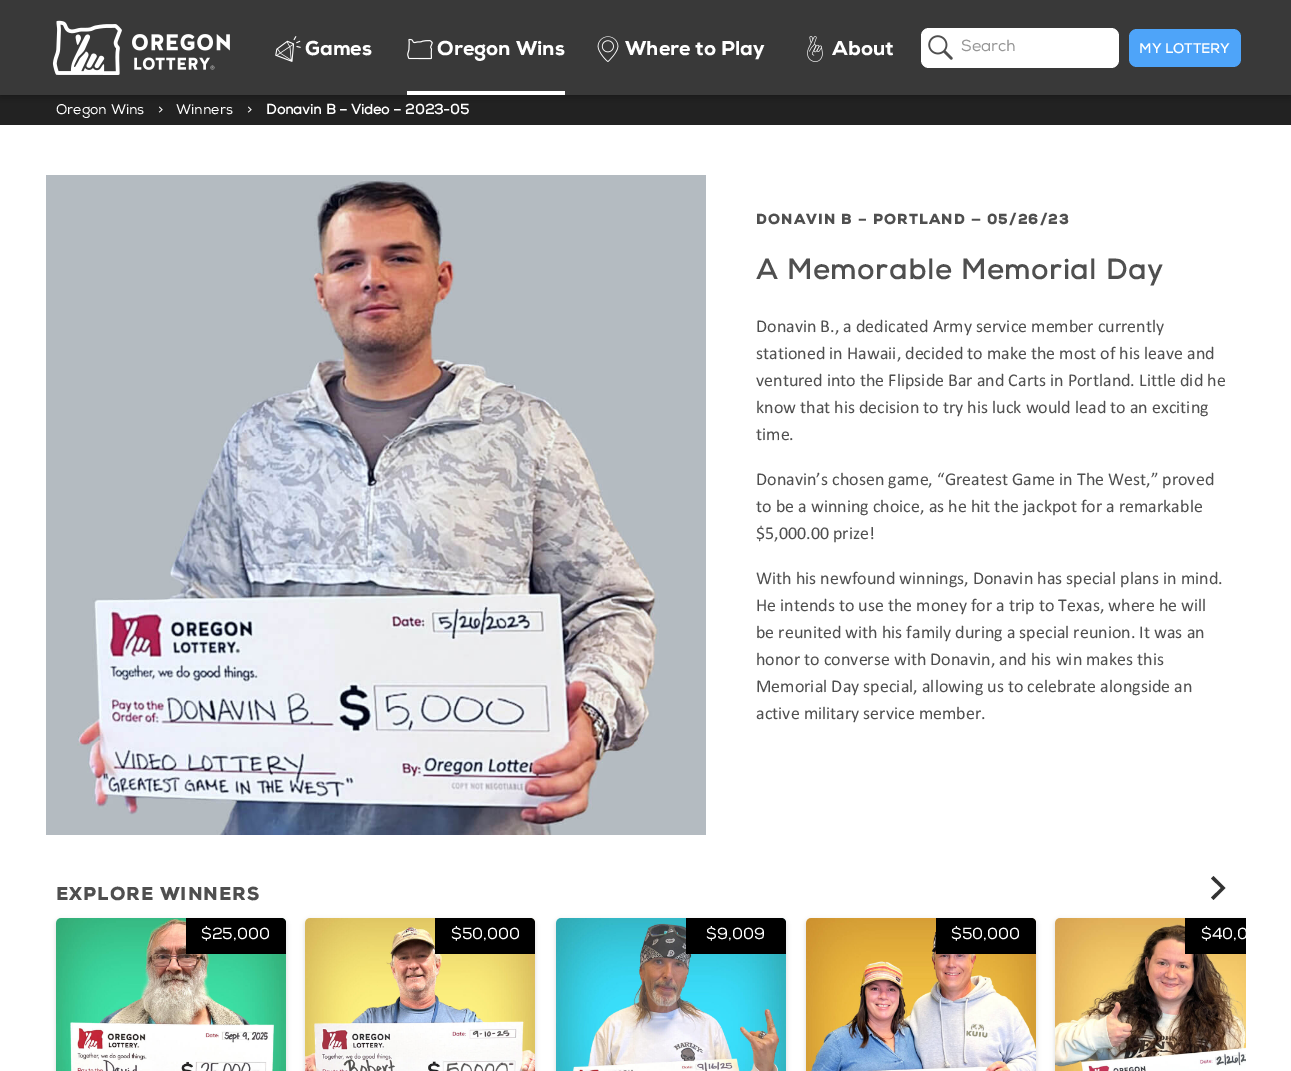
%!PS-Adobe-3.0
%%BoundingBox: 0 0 1291 1071
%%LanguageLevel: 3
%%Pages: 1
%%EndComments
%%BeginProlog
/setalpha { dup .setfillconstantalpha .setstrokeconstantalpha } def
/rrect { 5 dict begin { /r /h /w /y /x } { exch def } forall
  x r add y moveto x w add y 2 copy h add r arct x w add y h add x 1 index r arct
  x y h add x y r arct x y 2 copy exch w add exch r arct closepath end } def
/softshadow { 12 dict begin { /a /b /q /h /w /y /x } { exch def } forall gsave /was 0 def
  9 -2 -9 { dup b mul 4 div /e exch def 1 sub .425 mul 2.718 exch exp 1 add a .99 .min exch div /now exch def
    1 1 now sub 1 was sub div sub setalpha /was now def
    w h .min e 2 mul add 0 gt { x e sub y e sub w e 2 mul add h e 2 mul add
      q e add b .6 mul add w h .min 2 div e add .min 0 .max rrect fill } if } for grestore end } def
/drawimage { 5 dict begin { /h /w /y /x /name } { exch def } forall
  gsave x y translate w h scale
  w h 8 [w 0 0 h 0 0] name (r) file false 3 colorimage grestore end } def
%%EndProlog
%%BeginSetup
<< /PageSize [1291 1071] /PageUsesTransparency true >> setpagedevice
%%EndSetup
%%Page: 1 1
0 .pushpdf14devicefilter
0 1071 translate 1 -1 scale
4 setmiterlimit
1 setgray
0 0 1291 1071 rectfill
0.133 setgray
0 95 1291 30 rectfill
0 setgray
0 0 1291 95 0 5 0.4 softshadow
0.224 setgray
0 0 1291 95 rectfill
(images/1.raw) 52 20 178 55 drawimage
(images/2.raw) 275 36 26 26 drawimage
1 setgray
407 91 158 4 rectfill
(images/3.raw) 407 38 26 22 drawimage
(images/4.raw) 597 36 22 26 drawimage
(images/5.raw) 807 36 16 26 drawimage
921 28 198 40 8 rrect fill
(images/6.raw) 928 35 25 25 drawimage
0.306 0.643 0.976 setrgbcolor
1129 29 112 38 8 rrect fill
(images/7.raw) 46 175 660 660 drawimage
0.2 setgray
newpath 1225.5 888 moveto 1213.5 876 lineto 1211 878.5 lineto 1221 888 lineto 1211 897.5 lineto 1213.5 900 lineto closepath fill
0 setgray
55 919 232 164 6 2 0.1 softshadow
(images/8.raw) 56 918 230 153 drawimage
newpath 186 918 moveto 281 918 lineto 284 918 286 920 286 923 curveto 286 954 lineto 186 954 lineto closepath fill
304 919 232 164 6 2 0.1 softshadow
(images/9.raw) 305 918 230 153 drawimage
newpath 435 918 moveto 530 918 lineto 533 918 535 920 535 923 curveto 535 954 lineto 435 954 lineto closepath fill
555 919 232 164 6 2 0.1 softshadow
(images/10.raw) 556 918 230 153 drawimage
newpath 686 918 moveto 781 918 lineto 784 918 786 920 786 923 curveto 786 954 lineto 686 954 lineto closepath fill
805 919 232 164 6 2 0.1 softshadow
(images/11.raw) 806 918 230 153 drawimage
newpath 936 918 moveto 1031 918 lineto 1034 918 1036 920 1036 923 curveto 1036 954 lineto 936 954 lineto closepath fill
gsave
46 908 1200 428 rectclip
1054 919 232 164 6 2 0.1 softshadow
grestore
(images/12.raw) 1055 918 191 153 drawimage
1185 918 61 36 rectfill
/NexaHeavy-Regular [20 0 0 -20 0 0] selectfont
1 setgray
305 55 moveto (Games) show
437 55 moveto (Oregon Wins) show
625 55 moveto (Where to Play) show
832 55 moveto (About) show
/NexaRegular-Regular [16 0 0 -16 0 0] selectfont
0.592 setgray
961 51 moveto (Search) show
/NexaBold-Regular [14 0 0 -14 0 0] selectfont
1 setgray
1139 53 moveto (MY LOTTERY) show
/NexaRegular-Regular [14 0 0 -14 0 0] selectfont
56 114 moveto (Oregon Wins) show
158 114 moveto (>) show
176 114 moveto (Winners) show
247 114 moveto (>) show
/NexaRegular-Bold [14 0 0 -14 0 0] selectfont
266 114 moveto (Donavin B – Video – 2023-05) show
/NexaHeavy-Bold [14 0 0 -14 0 0] selectfont
0.31 setgray
756 224 moveto 1.5 0 (DONAVIN B – PORTLAND — 05/26/23) ashow
/NexaRegular-Bold [28 0 0 -28 0 0] selectfont
756 279 moveto 1.2 0 (A Memorable Memorial Day) ashow
/Calibri-Regular [18 0 0 -18 0 0] selectfont
756 332 moveto (Donavin B., a dedicated Army service member currently) show
756 359 moveto (stationed in Hawaii, decided to make the most of his leave and) show
756 386 moveto (ventured into the Flipside Bar and Carts in Portland. Little did he) show
756 413 moveto (know that his decision to try his luck would lead to an exciting) show
756 440 moveto (time.) show
756 485 moveto (Donavin’s chosen game, “Greatest Game in The West,” proved) show
756 512 moveto (to be a winning choice, as he hit the jackpot for a remarkable) show
756 539 moveto ($5,000.00 prize!) show
756 584 moveto (With his newfound winnings, Donavin has special plans in mind.) show
756 611 moveto (He intends to use the money for a trip to Texas, where he will) show
756 638 moveto (be reunited with his family during a special reunion. It was an) show
756 665 moveto (honor to converse with Donavin, and his win makes this) show
756 692 moveto (Memorial Day special, allowing us to celebrate alongside an) show
756 719 moveto (active military service member.) show
/NexaHeavy-Bold [18 0 0 -18 0 0] selectfont
56 900 moveto 1.5 0 (EXPLORE WINNERS) ashow
/NexaRegular-Regular [16 0 0 -16 0 0] selectfont
1 setgray
201 939 moveto ($25,000) show
451 939 moveto ($50,000) show
706 939 moveto ($9,009) show
951 939 moveto ($50,000) show
gsave
46 908 1200 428 rectclip
1201 939 moveto ($40,0) show
grestore
.poppdf14devicefilter showpage
%%EOF
